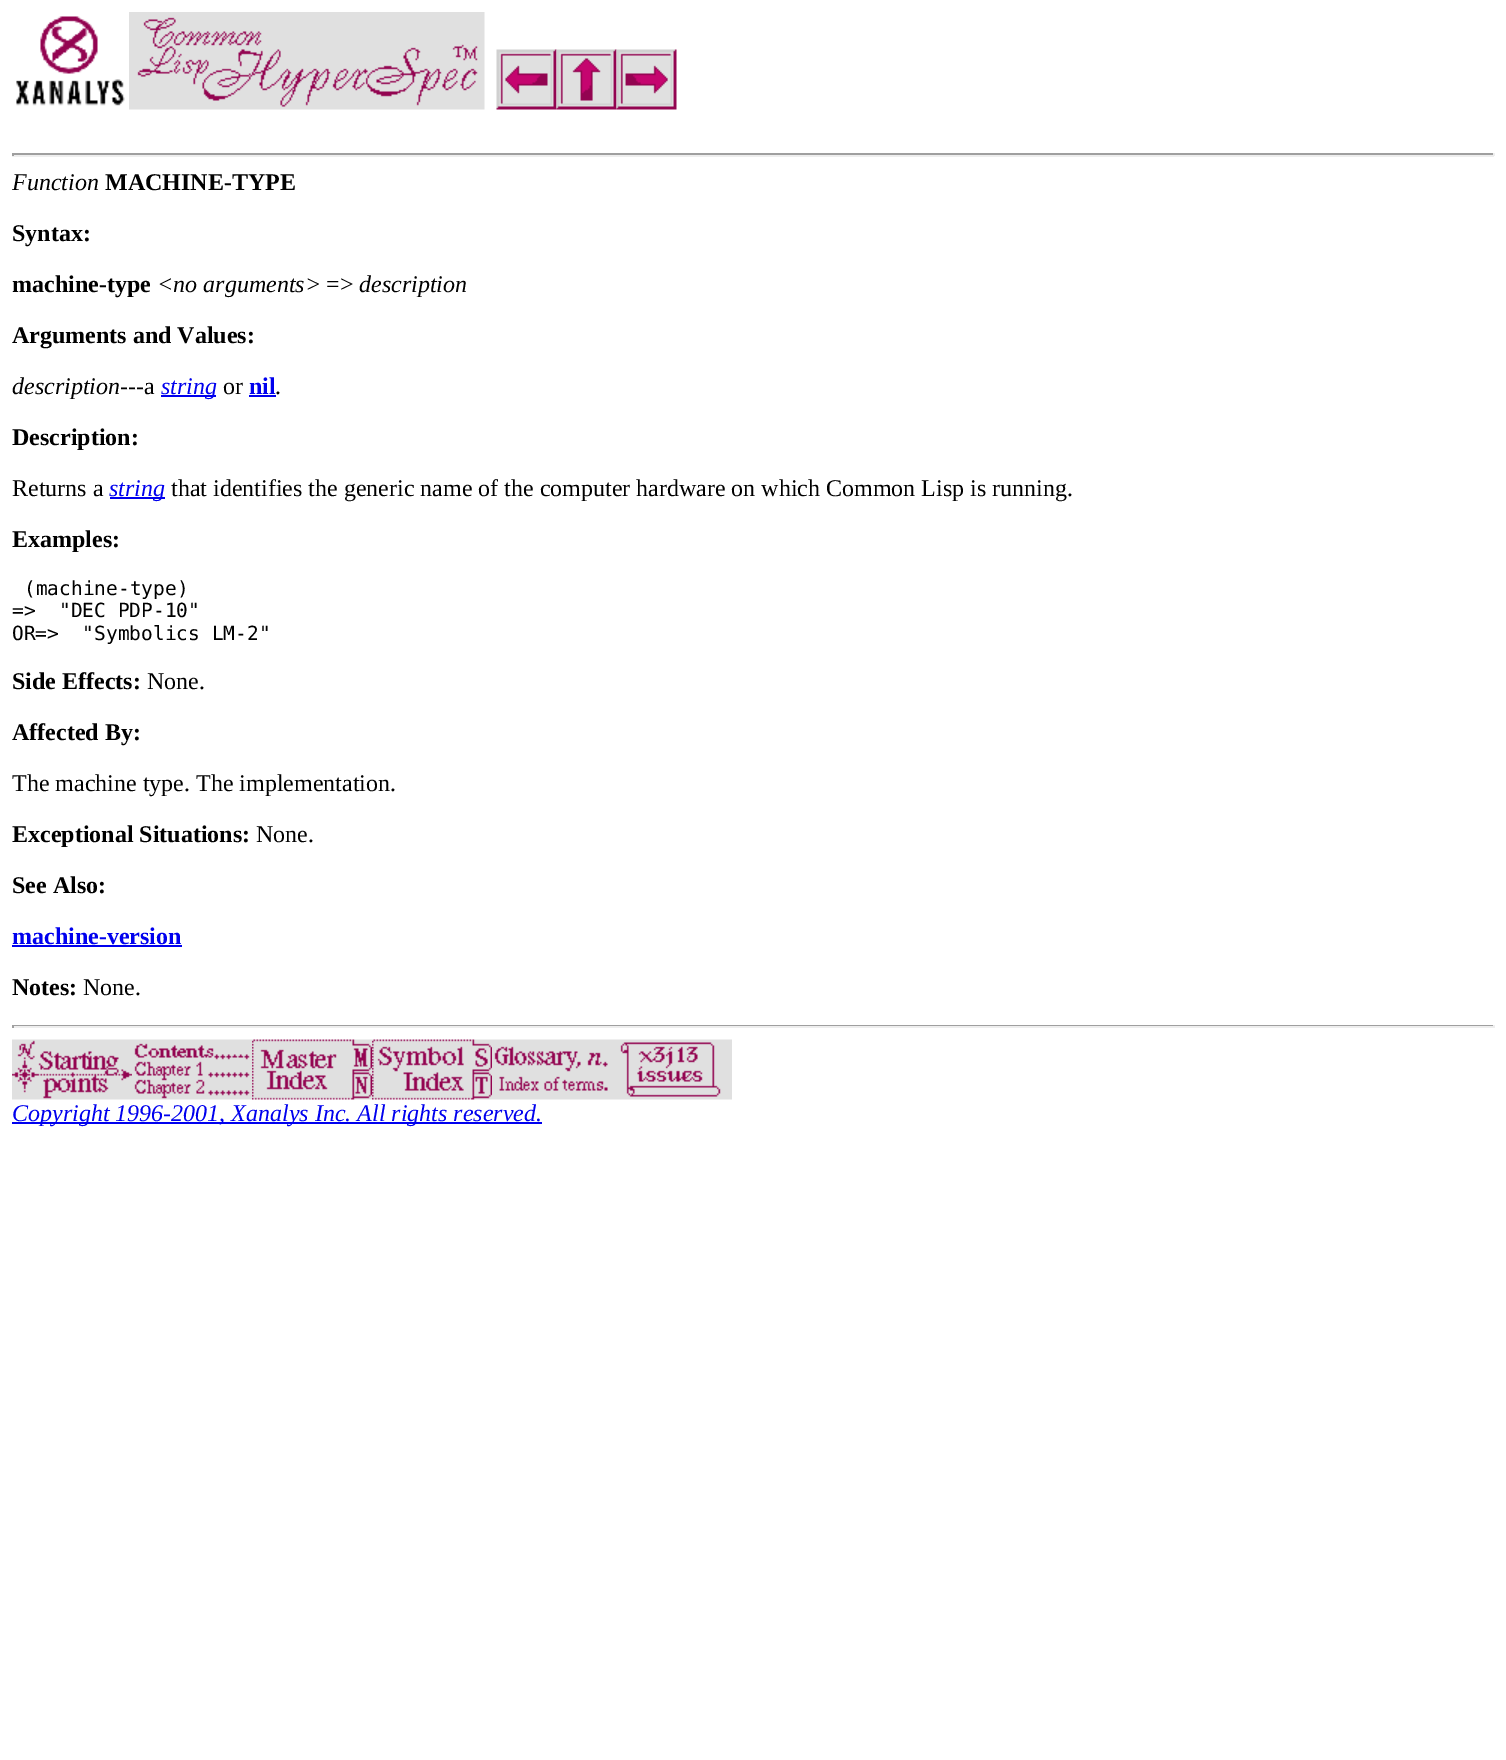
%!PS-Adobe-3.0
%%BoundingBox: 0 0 1506 1760
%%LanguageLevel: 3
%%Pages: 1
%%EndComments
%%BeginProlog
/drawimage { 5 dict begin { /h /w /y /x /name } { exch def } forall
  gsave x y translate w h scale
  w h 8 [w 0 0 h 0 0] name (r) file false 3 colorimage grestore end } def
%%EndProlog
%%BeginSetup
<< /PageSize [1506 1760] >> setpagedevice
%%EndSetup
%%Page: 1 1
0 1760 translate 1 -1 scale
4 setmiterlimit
1 setgray
0 0 1506 1760 rectfill
(images/1.raw) 16 16 109 90 drawimage
(images/2.raw) 129 12 356 98 drawimage
(images/3.raw) 496 49 61 61 drawimage
(images/4.raw) 556 49 61 61 drawimage
(images/5.raw) 616 49 61 61 drawimage
0.624 setgray
12 153 1482 2 rectfill
0.933 setgray
1493 153 2 3 rectfill
12 155 1482 2 rectfill
0.624 setgray
12 153 2 3 rectfill
0 0 0.933 setrgbcolor
161 395 55 2 rectfill
249 395 27 2 rectfill
110 497 55 2 rectfill
12 945 170 2 rectfill
0.624 setgray
12 1025 1482 1 rectfill
0.933 setgray
1493 1025 2 3 rectfill
12 1026 1482 2 rectfill
0.624 setgray
12 1025 2 3 rectfill
(images/6.raw) 12 1039 120 61 drawimage
(images/7.raw) 132 1039 120 61 drawimage
(images/8.raw) 252 1039 120 61 drawimage
(images/9.raw) 372 1039 120 61 drawimage
(images/10.raw) 492 1039 120 61 drawimage
(images/11.raw) 612 1039 120 61 drawimage
0 0 0.933 setrgbcolor
12 1122 530 2 rectfill
/LiberationSerif-Italic [24 0 0 -24 0 0] selectfont
0 setgray
12 190 moveto (Function) show
/LiberationSerif-Bold [24 0 0 -24 0 0] selectfont
105 190 moveto (MACHINE-TYPE) show
12 241 moveto (Syntax:) show
12 292 moveto (machine-type) show
/LiberationSerif-Italic [24 0 0 -24 0 0] selectfont
157 292 moveto (<no arguments>) show
/LiberationSerif-Regular [24 0 0 -24 0 0] selectfont
326 292 moveto (=>) show
/LiberationSerif-Italic [24 0 0 -24 0 0] selectfont
359 292 moveto (description) show
/LiberationSerif-Bold [24 0 0 -24 0 0] selectfont
12 343 moveto (Arguments and Values:) show
/LiberationSerif-Italic [24 0 0 -24 0 0] selectfont
12 394 moveto (description) show
/LiberationSerif-Regular [24 0 0 -24 0 0] selectfont
120 394 moveto (---a) show
/LiberationSerif-Italic [24 0 0 -24 0 0] selectfont
0 0 0.933 setrgbcolor
161 394 moveto (string) show
/LiberationSerif-Regular [24 0 0 -24 0 0] selectfont
0 setgray
223 394 moveto (or) show
/LiberationSerif-Bold [24 0 0 -24 0 0] selectfont
0 0 0.933 setrgbcolor
249 394 moveto (nil) show
/LiberationSerif-Regular [24 0 0 -24 0 0] selectfont
0 setgray
275 394 moveto (.) show
/LiberationSerif-Bold [24 0 0 -24 0 0] selectfont
12 445 moveto (Description:) show
/LiberationSerif-Regular [24 0 0 -24 0 0] selectfont
12 496 moveto (Returns a) show
/LiberationSerif-Italic [24 0 0 -24 0 0] selectfont
0 0 0.933 setrgbcolor
109 496 moveto (string) show
/LiberationSerif-Regular [24 0 0 -24 0 0] selectfont
0 setgray
171 496 moveto (that identifies the generic name of the computer hardware on which Common Lisp is running.) show
/LiberationSerif-Bold [24 0 0 -24 0 0] selectfont
12 547 moveto (Examples:) show
/DejaVuSansMono-Regular [19.5 0 0 -19.5 0 0] selectfont
24 595 moveto (\(machine-type\)) show
12 617 moveto (=>  "DEC PDP-10") show
12 640 moveto (OR=>  "Symbolics LM-2") show
/LiberationSerif-Bold [24 0 0 -24 0 0] selectfont
12 689 moveto (Side Effects:) show
/LiberationSerif-Regular [24 0 0 -24 0 0] selectfont
147 689 moveto (None.) show
/LiberationSerif-Bold [24 0 0 -24 0 0] selectfont
12 740 moveto (Affected By:) show
/LiberationSerif-Regular [24 0 0 -24 0 0] selectfont
12 791 moveto (The machine type. The implementation.) show
/LiberationSerif-Bold [24 0 0 -24 0 0] selectfont
12 842 moveto (Exceptional Situations:) show
/LiberationSerif-Regular [24 0 0 -24 0 0] selectfont
256 842 moveto (None.) show
/LiberationSerif-Bold [24 0 0 -24 0 0] selectfont
12 893 moveto (See Also:) show
0 0 0.933 setrgbcolor
12 944 moveto (machine-version) show
0 setgray
12 995 moveto (Notes:) show
/LiberationSerif-Regular [24 0 0 -24 0 0] selectfont
83 995 moveto (None.) show
/LiberationSerif-Italic [24 0 0 -24 0 0] selectfont
0 0 0.933 setrgbcolor
12 1121 moveto (Copyright 1996-2001, Xanalys Inc. All rights reserved.) show
showpage
%%EOF
